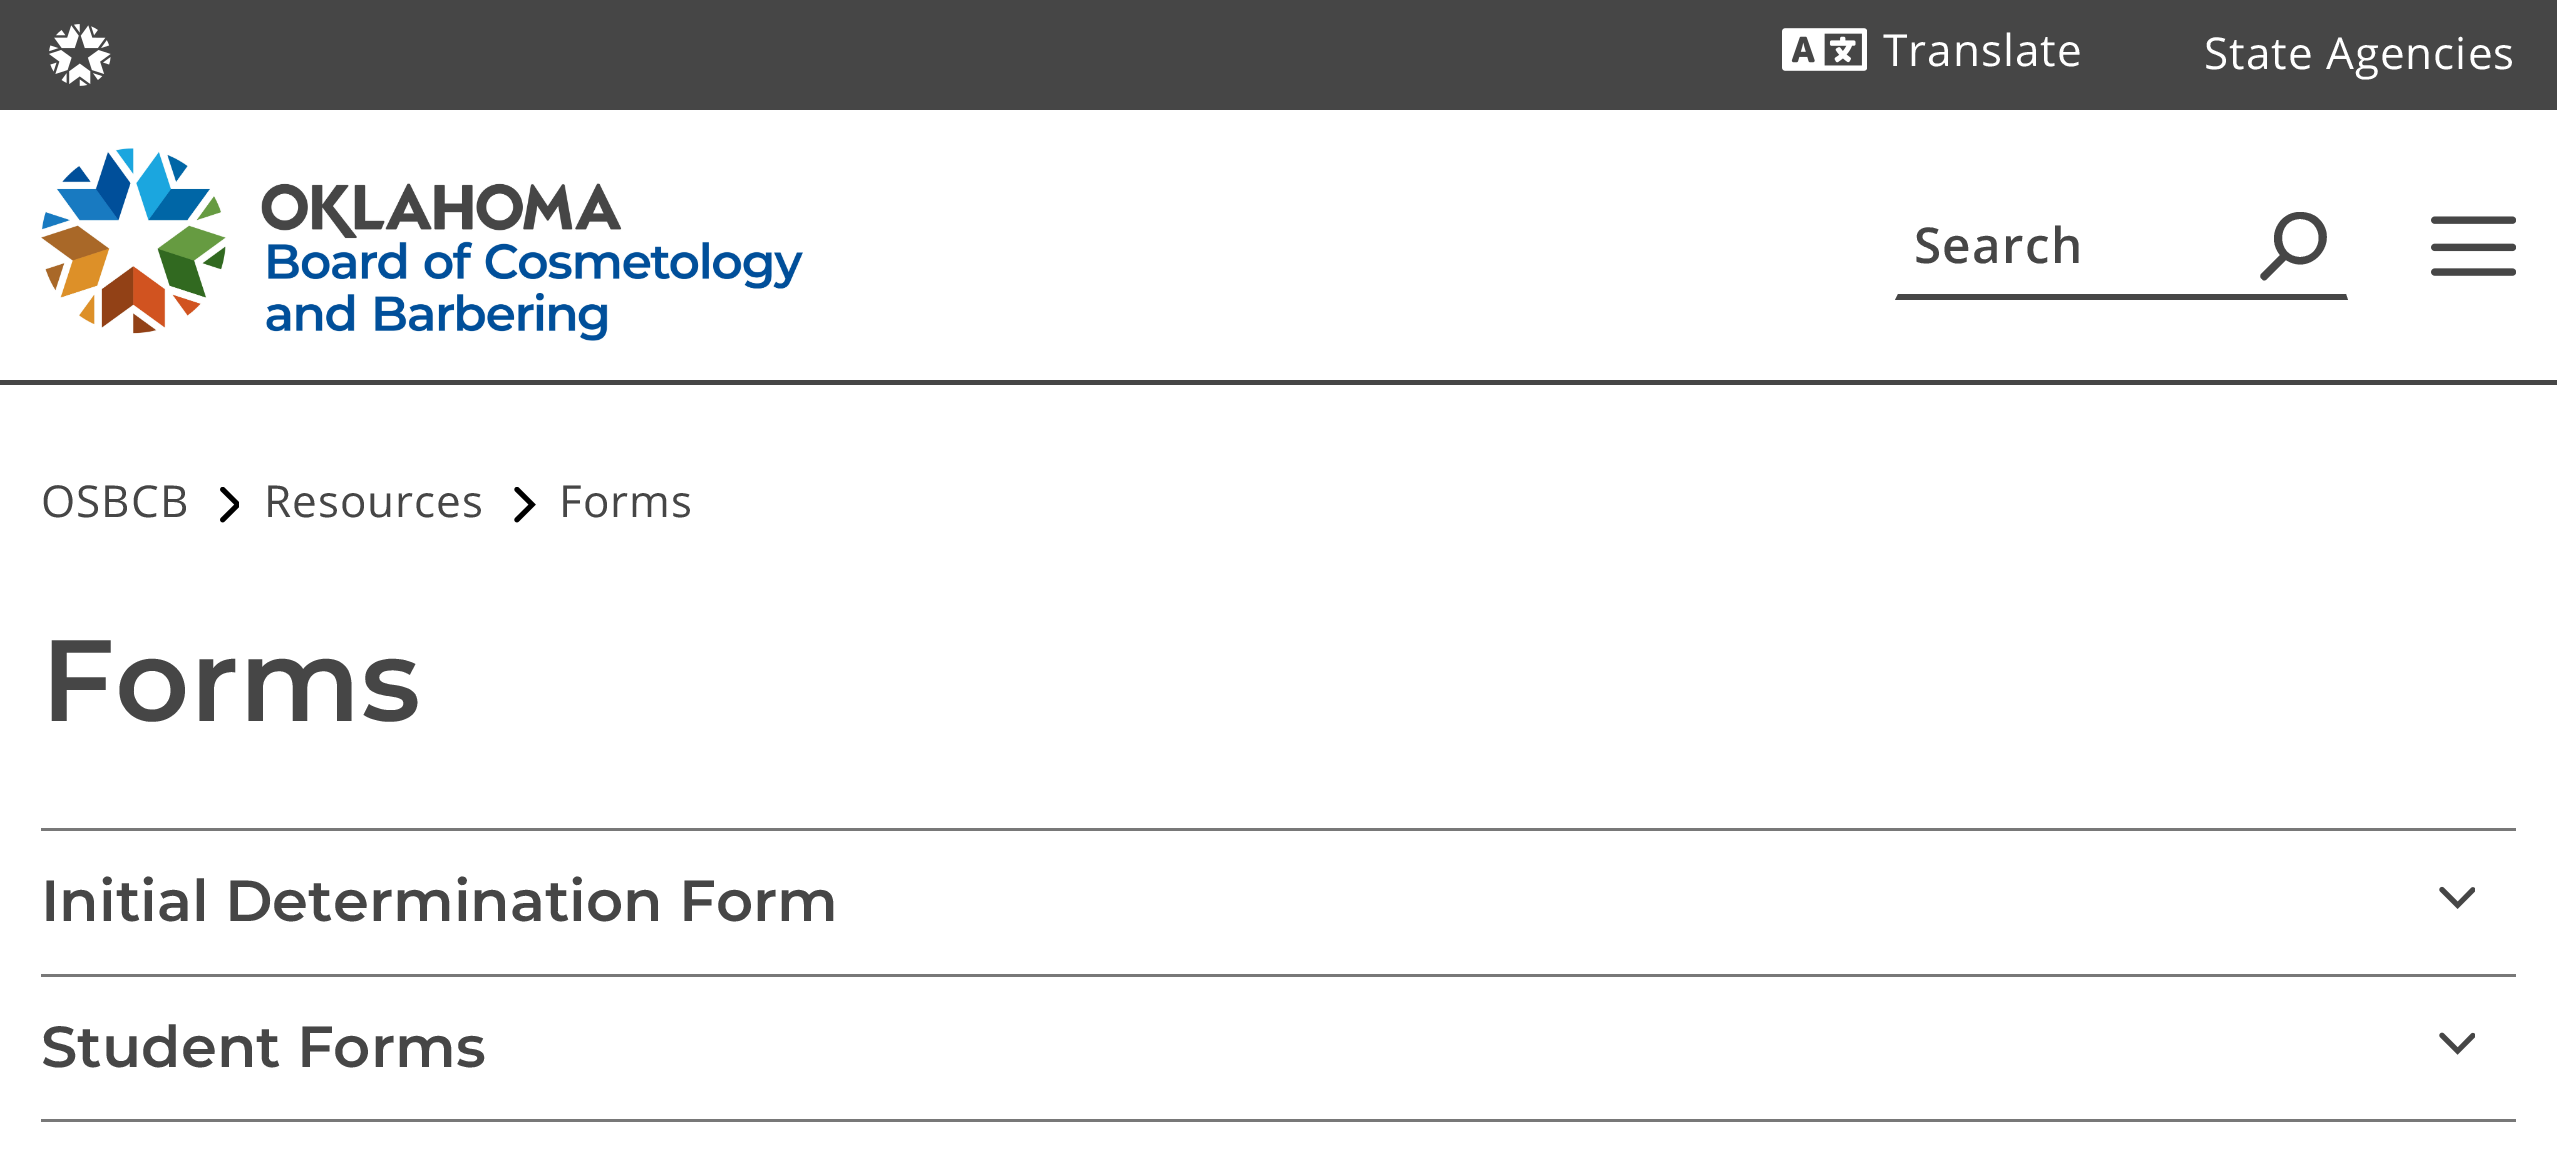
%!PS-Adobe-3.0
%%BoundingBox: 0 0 2557 1158
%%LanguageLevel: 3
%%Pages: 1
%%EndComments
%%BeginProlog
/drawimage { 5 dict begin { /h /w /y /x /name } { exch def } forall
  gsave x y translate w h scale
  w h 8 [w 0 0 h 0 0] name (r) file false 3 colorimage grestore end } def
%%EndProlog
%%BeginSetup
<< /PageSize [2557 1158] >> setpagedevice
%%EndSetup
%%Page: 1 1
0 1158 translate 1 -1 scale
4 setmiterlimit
1 setgray
0 0 2557 1158 rectfill
0.275 setgray
0 0 2557 110 rectfill
(images/1.raw) 49 24 62 62 drawimage
(images/2.raw) 1782 28 85 43 drawimage
0 380 2557 5 rectfill
(images/3.raw) 41 148 762 193 drawimage
newpath 2348 300 moveto 1895 300 lineto 1898 294 lineto 2346 294 lineto closepath fill
newpath 2300 212 moveto 2278 212 2266 238 2280 255 curveto 2261 274 lineto 2260 276 2260 278 2262 279 curveto 2263 281 2265 281 2267 279 curveto 2286 260 lineto 2312 277 2341 241 2319 219 curveto 2314 214 2307 212 2300 212 curveto closepath 2300 257 moveto 2276 257 2276 219 2300 219 curveto 2325 219 2325 257 2300 257 curveto closepath fill
(images/4.raw) 2431 216 85 60 drawimage
(images/5.raw) 220 487 19 36 drawimage
(images/6.raw) 514 487 22 36 drawimage
0.471 setgray
41 828 2475 3 rectfill
(images/7.raw) 2439 886 36 23 drawimage
41 974 2475 3 rectfill
(images/8.raw) 2439 1032 36 23 drawimage
41 1119 2475 3 rectfill
/OpenSans-Regular [44 0 0 -44 0 0] selectfont
1 setgray
1883 66 moveto 1 0 (Translate) ashow
2204 69 moveto 1 0 (State Agencies) ashow
/OpenSans-SemiBold [49.5 0 0 -49.5 0 0] selectfont
0.275 setgray
1914 263 moveto 1.25 0 (Search) ashow
/OpenSans-Regular [44 0 0 -44 0 0] selectfont
41 517 moveto 1 0 (OSBCB) ashow
264 517 moveto 1 0 (Resources) ashow
559 517 moveto 1 0 (Forms) ashow
/Montserrat-SemiBold [115.5 0 0 -115.5 0 0] selectfont
41 721 moveto 0.5 0 (Forms) ashow
/Montserrat-SemiBold [57.75 0 0 -57.75 0 0] selectfont
41 921 moveto (Initial Determination Form) show
41 1067 moveto (Student Forms) show
showpage
%%EOF
